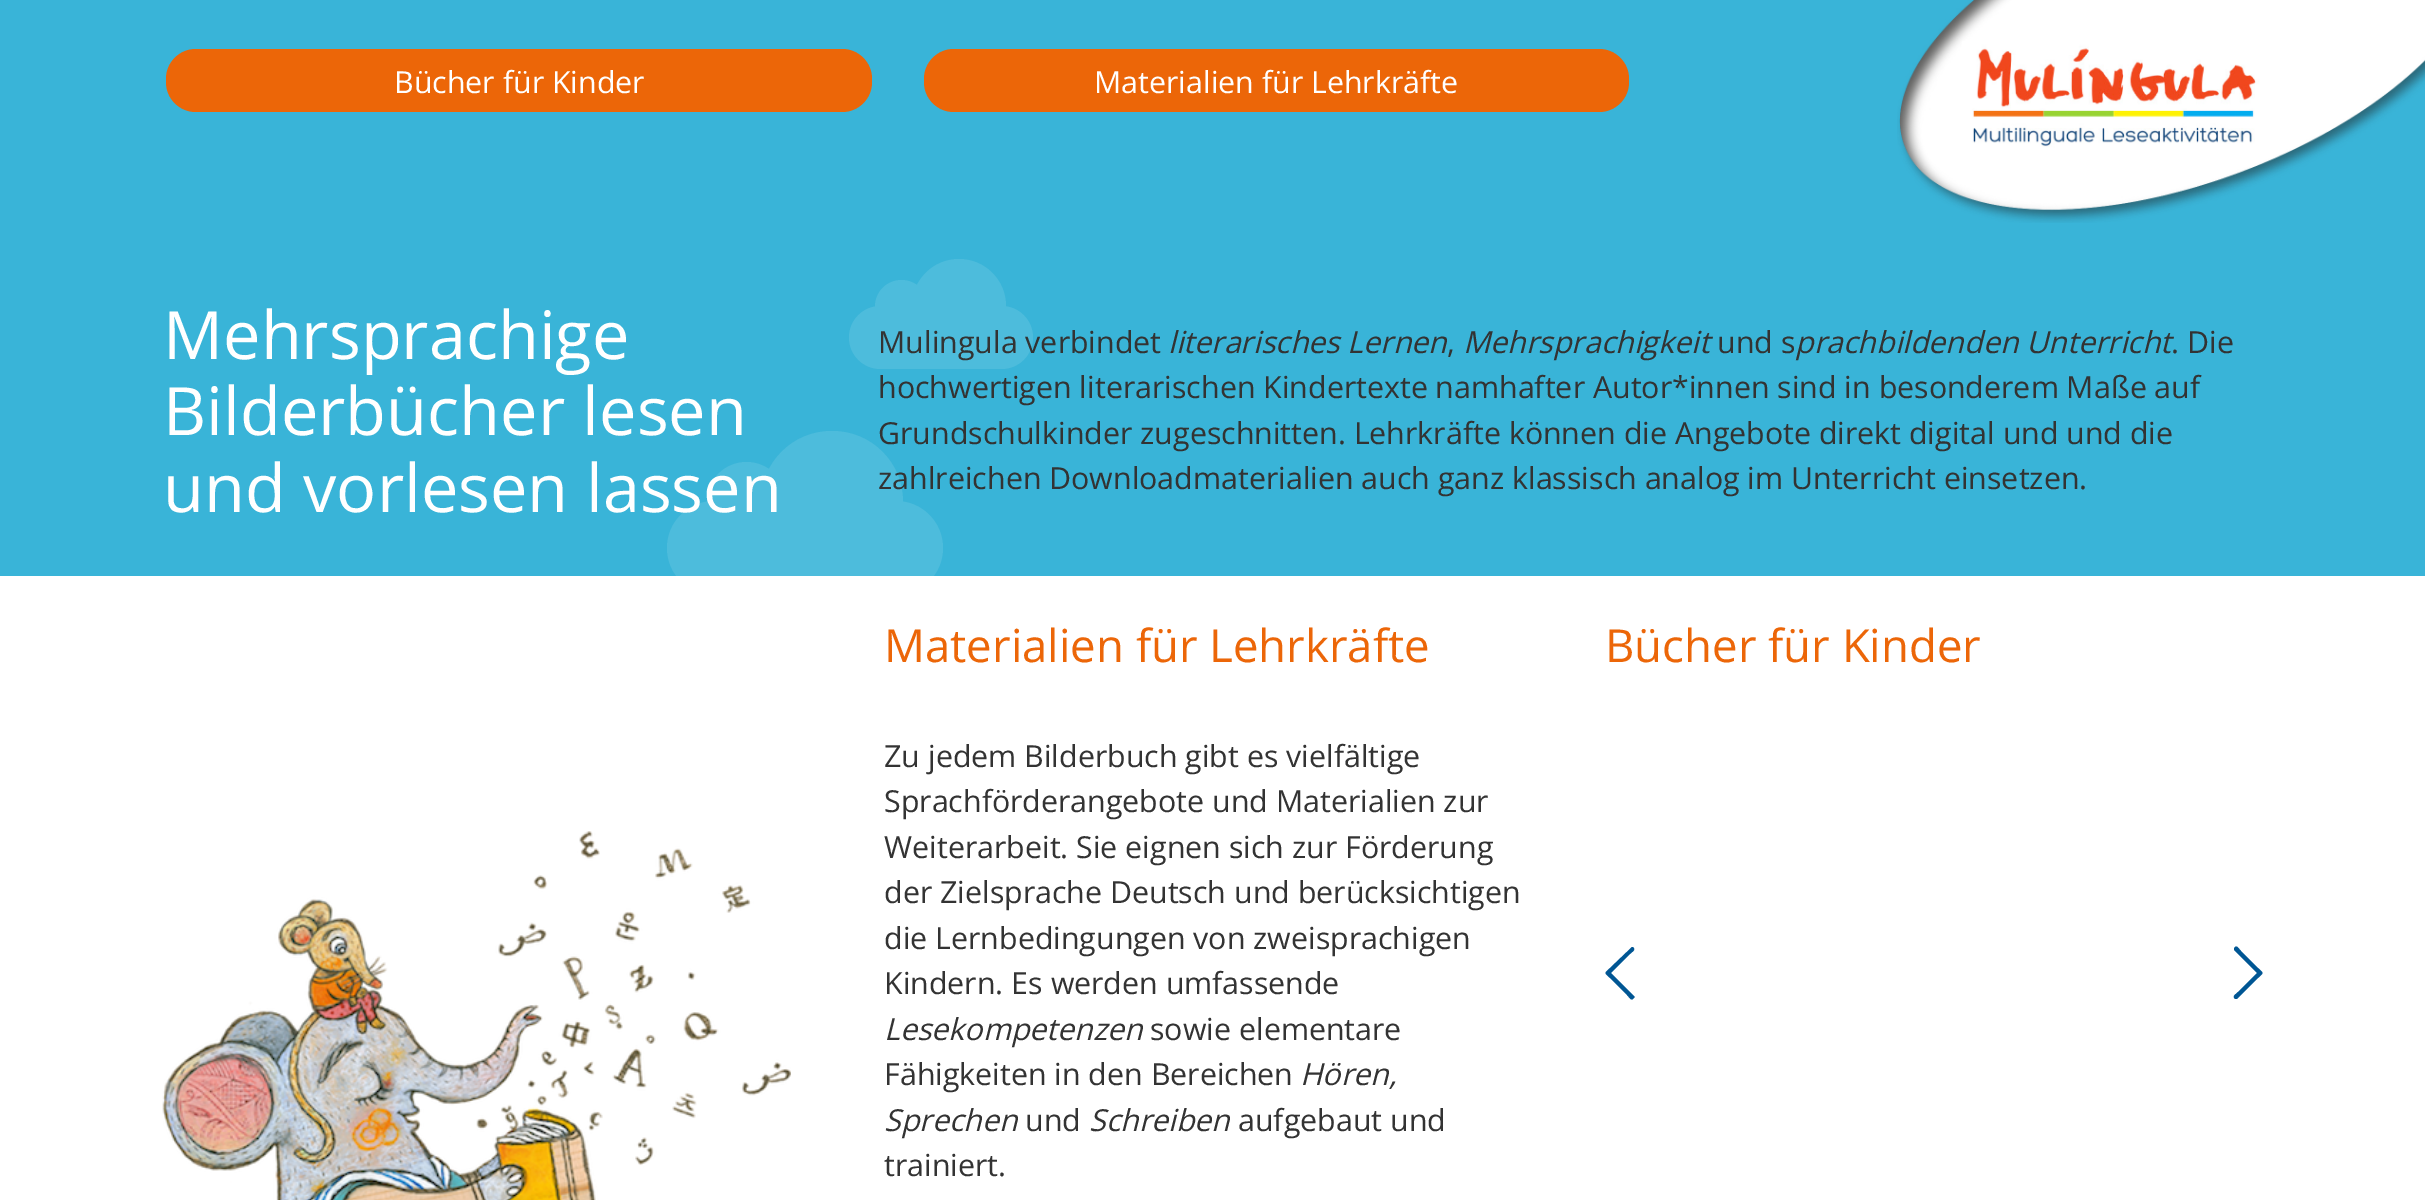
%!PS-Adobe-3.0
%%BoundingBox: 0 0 2425 1200
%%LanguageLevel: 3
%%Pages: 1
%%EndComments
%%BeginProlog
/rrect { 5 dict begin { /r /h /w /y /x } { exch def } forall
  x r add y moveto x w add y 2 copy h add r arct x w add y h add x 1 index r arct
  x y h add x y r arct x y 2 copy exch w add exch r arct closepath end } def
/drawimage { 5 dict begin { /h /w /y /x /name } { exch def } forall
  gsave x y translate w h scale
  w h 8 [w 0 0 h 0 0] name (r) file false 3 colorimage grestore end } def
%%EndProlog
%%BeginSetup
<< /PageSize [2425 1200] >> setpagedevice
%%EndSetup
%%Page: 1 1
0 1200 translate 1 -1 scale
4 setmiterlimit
0.224 0.706 0.847 setrgbcolor
0 0 2425 1200 rectfill
0.925 0.4 0.031 setrgbcolor
166 49 706 63 30 rrect fill
924 49 705 63 30 rrect fill
(images/1.raw) 1897 0 528 223 drawimage
0.302 0.737 0.863 setrgbcolor
849 306 184 63 31.5 rrect fill
912 259 94 95 47 rrect fill
newpath 901.5 306.5 26.5 0 360 arc closepath fill
667 501 276 94 47 rrect fill
761 431 142 141 70.5 rrect fill
newpath 746.5 501.5 39.5 0 360 arc closepath fill
1 setgray
0 576 2425 624 rectfill
0 0.337 0.58 setrgbcolor
newpath 1633 999 moveto 1631 1001 1629 997 1627 995 curveto 1610 978 lineto 1604 972 1604 974 1610 968 curveto 1632 947 lineto 1633 947 lineto 1636 950 1633 951 1630 954 curveto 1611 973 lineto 1634 996 lineto 1635 997 1635 997 1634 998 curveto closepath fill
newpath 2235 947 moveto 2237 945 2239 949 2241 951 curveto 2258 968 lineto 2264 974 2264 972 2258 978 curveto 2237 999 lineto 2235 999 lineto 2232 996 2235 995 2238 992 curveto 2257 973 lineto 2234 950 lineto 2234 949 2234 949 2234 948 curveto closepath fill
(images/2.raw) 162 831 629 369 drawimage
/OpenSans-Regular [30.35 0 0 -30.35 0 0] selectfont
1 setgray
394 93 moveto (Bücher für Kinder) show
1094 93 moveto (Materialien für Lehrkräfte) show
/OpenSans-Regular [66.75 0 0 -66.75 0 0] selectfont
163 359 moveto (Mehrsprachige) show
163 435 moveto (Bilderbücher lesen) show
163 512 moveto (und vorlesen lassen) show
/OpenSans-Regular [30.35 0 0 -30.35 0 0] selectfont
0.2 setgray
878 353 moveto (Mulingula verbindet) show
/OpenSans-Italic [30.35 0 0 -30.35 0 0] selectfont
1168 353 moveto (literarisches Lernen) show
/OpenSans-Regular [30.35 0 0 -30.35 0 0] selectfont
1447 353 moveto (,) show
/OpenSans-Italic [30.35 0 0 -30.35 0 0] selectfont
1463 353 moveto (Mehrsprachigkeit) show
/OpenSans-Regular [30.35 0 0 -30.35 0 0] selectfont
1717 353 moveto (und s) show
/OpenSans-Italic [30.35 0 0 -30.35 0 0] selectfont
1795 353 moveto (prachbildenden Unterricht) show
/OpenSans-Regular [30.35 0 0 -30.35 0 0] selectfont
2171 353 moveto (. Die) show
878 398 moveto (hochwertigen literarischen Kindertexte namhafter Autor*innen sind in besonderem Maße auf) show
878 444 moveto (Grundschulkinder zugeschnitten. Lehrkräfte können die Angebote direkt digital und und die) show
878 489 moveto (zahlreichen Downloadmaterialien auch ganz klassisch analog im Unterricht einsetzen.) show
/OpenSans-Regular [45.5 0 0 -45.5 0 0] selectfont
0.925 0.4 0.031 setrgbcolor
884 662 moveto (Materialien für Lehrkräfte) show
/OpenSans-Regular [30.35 0 0 -30.35 0 0] selectfont
0.2 setgray
884 767 moveto (Zu jedem Bilderbuch gibt es vielfältige) show
884 812 moveto (Sprachförderangebote und Materialien zur) show
884 858 moveto (Weiterarbeit. Sie eignen sich zur Förderung) show
884 903 moveto (der Zielsprache Deutsch und berücksichtigen) show
884 949 moveto (die Lernbedingungen von zweisprachigen) show
884 994 moveto (Kindern. Es werden umfassende) show
/OpenSans-Italic [30.35 0 0 -30.35 0 0] selectfont
884 1040 moveto (Lesekompetenzen) show
/OpenSans-Regular [30.35 0 0 -30.35 0 0] selectfont
1150 1040 moveto (sowie elementare) show
884 1085 moveto (Fähigkeiten in den Bereichen) show
/OpenSans-Italic [30.35 0 0 -30.35 0 0] selectfont
1300 1085 moveto (Hören,) show
884 1131 moveto (Sprechen) show
/OpenSans-Regular [30.35 0 0 -30.35 0 0] selectfont
1025 1131 moveto (und) show
/OpenSans-Italic [30.35 0 0 -30.35 0 0] selectfont
1089 1131 moveto (Schreiben) show
/OpenSans-Regular [30.35 0 0 -30.35 0 0] selectfont
1238 1131 moveto (aufgebaut und) show
884 1176 moveto (trainiert.) show
/OpenSans-Regular [45.5 0 0 -45.5 0 0] selectfont
0.925 0.4 0.031 setrgbcolor
1605 662 moveto (Bücher für Kinder) show
showpage
%%EOF
